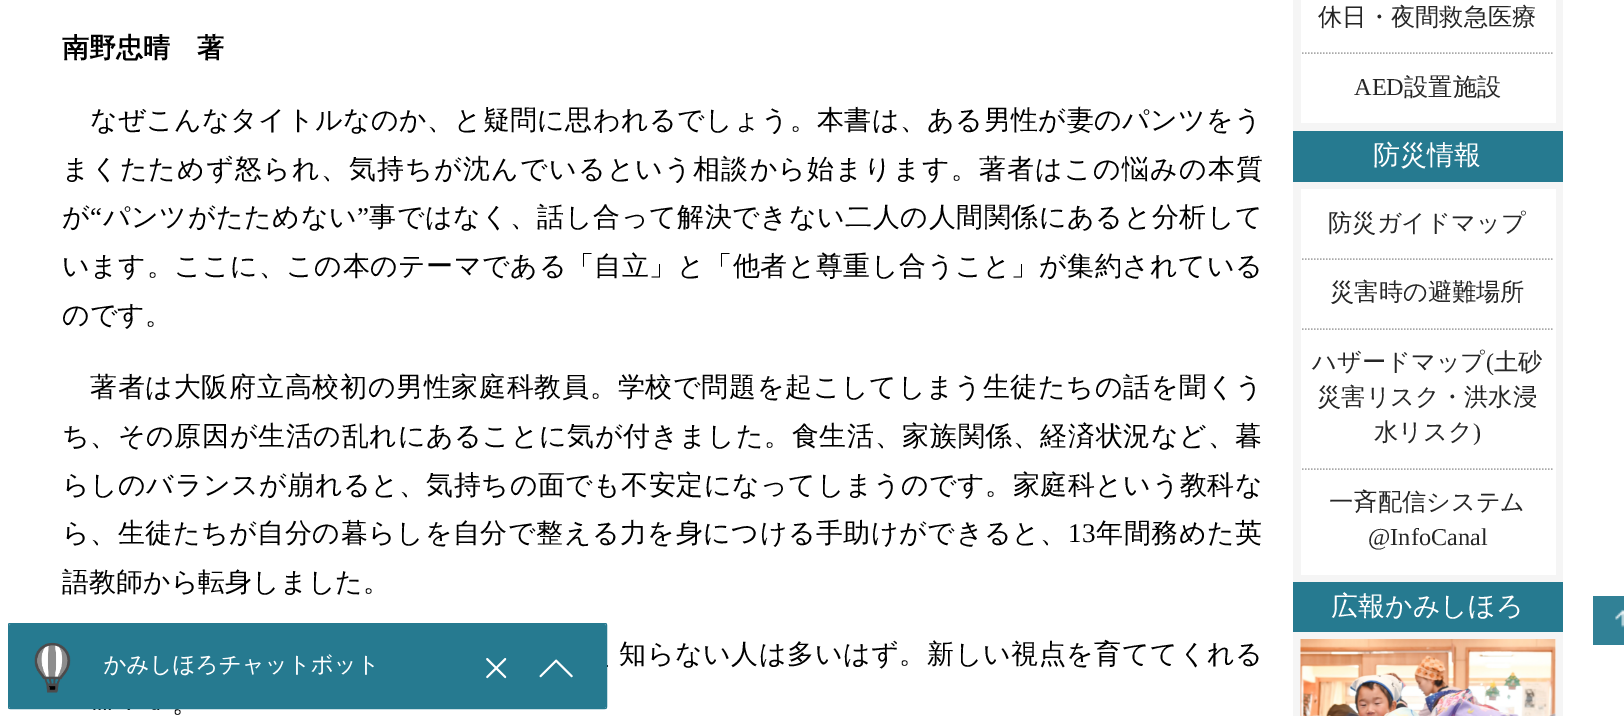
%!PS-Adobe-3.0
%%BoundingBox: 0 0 1624 716
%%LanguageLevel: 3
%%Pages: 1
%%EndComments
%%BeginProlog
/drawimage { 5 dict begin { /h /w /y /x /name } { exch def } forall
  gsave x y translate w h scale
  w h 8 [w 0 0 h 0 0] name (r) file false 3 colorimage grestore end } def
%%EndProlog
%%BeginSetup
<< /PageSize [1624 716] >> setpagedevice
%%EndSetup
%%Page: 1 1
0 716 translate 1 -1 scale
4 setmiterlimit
1 setgray
0 0 1624 716 rectfill
0.961 setgray
1293 0 270 131 rectfill
1 setgray
1301 0 255 123 rectfill
0.663 setgray
1.5 setlinewidth
[1.5 1.5] 0 setdash
newpath 1302 53 moveto 1554 53 lineto stroke
0.149 0.478 0.565 setrgbcolor
1293 131 270 51 rectfill
0.961 setgray
1293 182 270 400 rectfill
1 setgray
1301 189 255 386 rectfill
0.663 setgray
newpath 1302 259 moveto 1554 259 lineto stroke
newpath 1302 329 moveto 1554 329 lineto stroke
newpath 1302 469 moveto 1554 469 lineto stroke
0.149 0.478 0.565 setrgbcolor
1293 582 270 50 rectfill
0.961 setgray
1293 632 270 84 rectfill
1 setgray
1555 639 1 77 rectfill
(images/1.raw) 1300 639 256 77 drawimage
0.192 0.506 0.588 setrgbcolor
1593 596 31 49 rectfill
(images/2.raw) 1615 609 9 19 drawimage
/WenQuanYiZenHei-Bold [27 0 0 -27 0 0] selectfont
0 setgray
62 57 moveto (南野忠晴　著) show
/WenQuanYiZenHei-Medium [27 0 0 -27 0 0] selectfont
90 129 moveto 0.45 0 (なぜこんなタイトルなのか、と疑問に思われるでしょう。本書は、ある男性が妻のパンツをう) ashow
62 178 moveto 1.2 0 (まくたためず怒られ、気持ちが沈んでいるという相談から始まります。著者はこの悩みの本質) ashow
62 226 moveto 0.6 0 (が) ashow
/LiberationSerif-Regular [27 0 0 -27 0 0] selectfont
90 226 moveto 0.6 0 (“) ashow
/WenQuanYiZenHei-Medium [27 0 0 -27 0 0] selectfont
103 226 moveto 0.6 0 (パンツがたためない) ashow
/LiberationSerif-Regular [27 0 0 -27 0 0] selectfont
357 226 moveto 0.6 0 (”) ashow
/WenQuanYiZenHei-Medium [27 0 0 -27 0 0] selectfont
369 226 moveto 0.6 0 (事ではなく、話し合って解決できない二人の人間関係にあると分析して) ashow
62 275 moveto 0.55 0 (います。ここに、この本のテーマである「自立」と「他者と尊重し合うこと」が集約されている) ashow
62 324 moveto (のです。) show
90 396 moveto 0.7 0 (著者は大阪府立高校初の男性家庭科教員。学校で問題を起こしてしまう生徒たちの話を聞くう) ashow
62 445 moveto 0.65 0 (ち、その原因が生活の乱れにあることに気が付きました。食生活、家族関係、経済状況など、暮) ashow
62 494 moveto 0.5 0 (らしのバランスが崩れると、気持ちの面でも不安定になってしまうのです。家庭科という教科な) ashow
62 542 moveto 0.55 0 (ら、生徒たちが自分の暮らしを自分で整える力を身につける手助けができると、) ashow
/LiberationSerif-Regular [27 0 0 -27 0 0] selectfont
1068 542 moveto 0.55 0 (13) ashow
/WenQuanYiZenHei-Medium [27 0 0 -27 0 0] selectfont
1096 542 moveto 0.55 0 (年間務めた英) ashow
62 591 moveto (語教師から転身しました。) show
619 663 moveto 0.6 0 (知らない人は多いはず。新しい視点を育ててくれる) ashow
172 712 moveto (。) show
/WenQuanYiZenHei-Medium [24.25 0 0 -24.25 0 0] selectfont
0.149 setgray
1318 25 moveto (休日・夜間救急医療) show
/LiberationSerif-Regular [24.25 0 0 -24.25 0 0] selectfont
1354 95 moveto (AED) show
/WenQuanYiZenHei-Medium [24.25 0 0 -24.25 0 0] selectfont
1404 95 moveto (設置施設) show
/WenQuanYiZenHei-Medium [27 0 0 -27 0 0] selectfont
1 setgray
1373 164 moveto (防災情報) show
/WenQuanYiZenHei-Medium [24.25 0 0 -24.25 0 0] selectfont
0.149 setgray
1328 231 moveto (防災ガイドマップ) show
1330 300 moveto (災害時の避難場所) show
1312 370 moveto (ハザードマップ) show
/LiberationSerif-Regular [24.25 0 0 -24.25 0 0] selectfont
1486 370 moveto (\() show
/WenQuanYiZenHei-Medium [24.25 0 0 -24.25 0 0] selectfont
1494 370 moveto (土砂) show
1317 405 moveto (災害リスク・洪水浸) show
1374 440 moveto (水リスク) show
/LiberationSerif-Regular [24.25 0 0 -24.25 0 0] selectfont
1473 440 moveto (\)) show
/WenQuanYiZenHei-Medium [24.25 0 0 -24.25 0 0] selectfont
1329 510 moveto (一斉配信システム) show
/LiberationSerif-Regular [24.25 0 0 -24.25 0 0] selectfont
1368 545 moveto (@InfoCanal) show
/WenQuanYiZenHei-Medium [27 0 0 -27 0 0] selectfont
1 setgray
1331 615 moveto (広報かみしほろ) show
(images/3.raw) 8 623 600 87 drawimage
showpage
%%EOF
